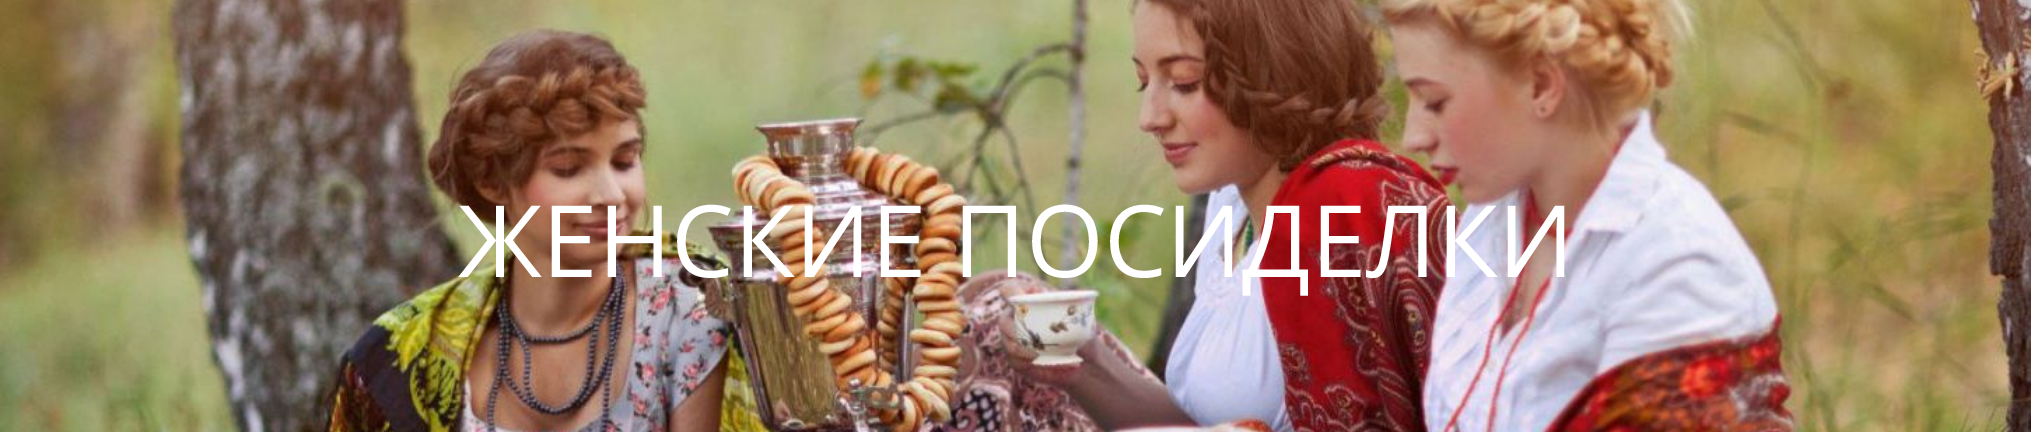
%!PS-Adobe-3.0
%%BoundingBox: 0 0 2031 432
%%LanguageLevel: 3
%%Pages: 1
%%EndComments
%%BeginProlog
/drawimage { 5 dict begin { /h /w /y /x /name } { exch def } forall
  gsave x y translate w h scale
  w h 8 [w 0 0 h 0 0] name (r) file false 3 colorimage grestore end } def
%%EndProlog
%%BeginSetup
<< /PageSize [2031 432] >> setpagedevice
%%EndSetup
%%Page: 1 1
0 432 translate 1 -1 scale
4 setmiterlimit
1 setgray
0 0 2031 432 rectfill
(images/1.raw) 0 0 2031 432 drawimage
/OpenSans-Regular [100 0 0 -100 0 0] selectfont
458 277 moveto (ЖЕНСКИЕ ПОСИДЕЛКИ) show
showpage
%%EOF
